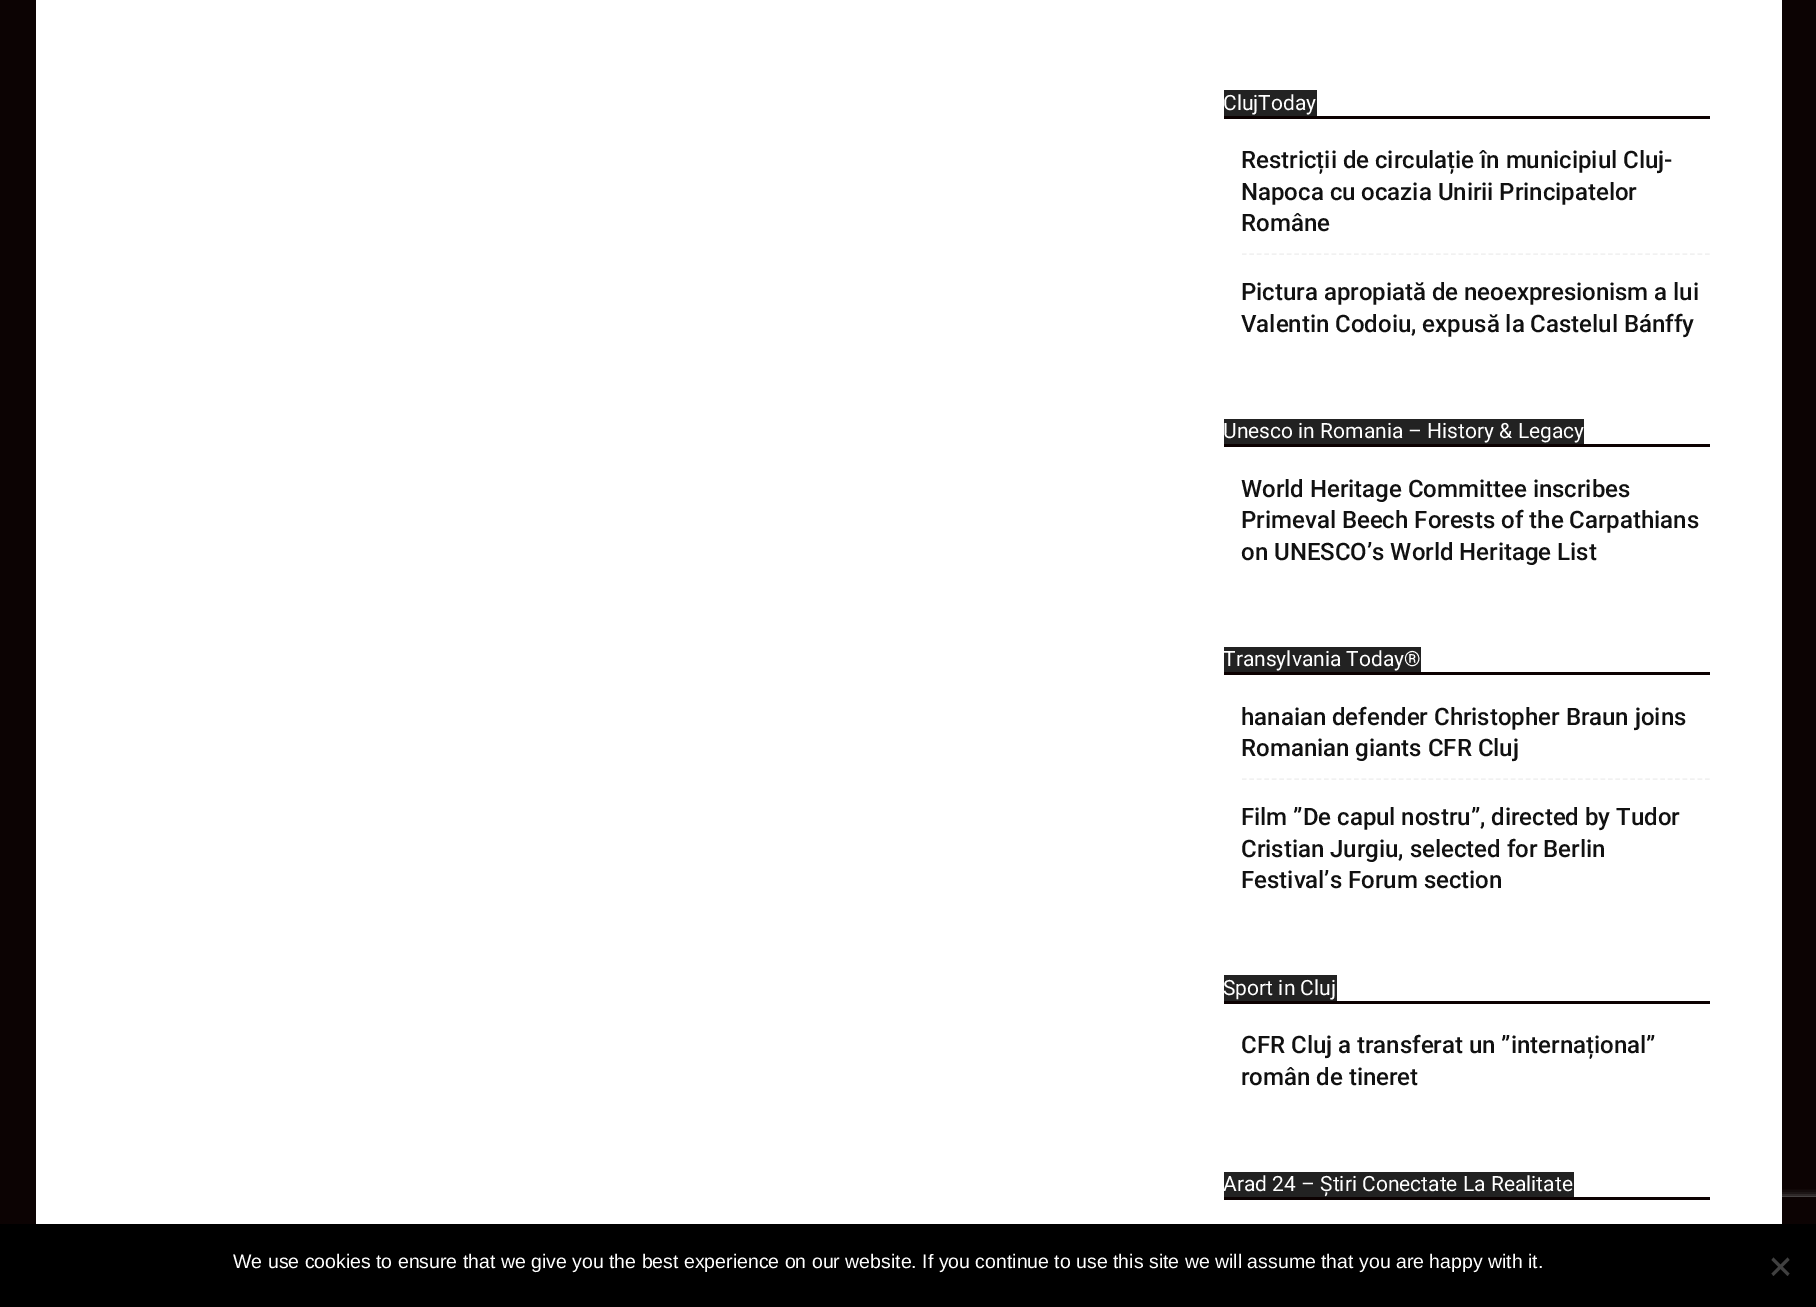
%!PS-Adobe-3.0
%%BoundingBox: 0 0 1816 1307
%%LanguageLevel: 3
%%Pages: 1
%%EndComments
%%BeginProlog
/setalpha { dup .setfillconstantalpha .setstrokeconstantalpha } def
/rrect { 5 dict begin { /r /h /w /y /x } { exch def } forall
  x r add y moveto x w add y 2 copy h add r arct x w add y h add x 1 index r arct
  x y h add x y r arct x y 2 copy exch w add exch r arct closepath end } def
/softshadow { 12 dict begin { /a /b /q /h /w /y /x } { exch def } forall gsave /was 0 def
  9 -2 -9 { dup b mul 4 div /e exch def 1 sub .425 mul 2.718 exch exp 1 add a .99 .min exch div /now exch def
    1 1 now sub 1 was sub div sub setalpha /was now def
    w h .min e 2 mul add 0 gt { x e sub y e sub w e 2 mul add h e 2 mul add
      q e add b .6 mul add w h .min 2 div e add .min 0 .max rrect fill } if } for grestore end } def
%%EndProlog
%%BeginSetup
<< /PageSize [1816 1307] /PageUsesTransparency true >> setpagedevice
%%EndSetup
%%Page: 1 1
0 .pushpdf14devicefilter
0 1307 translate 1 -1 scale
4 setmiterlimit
0.047 0.012 0.012 setrgbcolor
0 0 1816 1307 rectfill
gsave
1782 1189 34 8 rectclip
0.502 setgray
1712 1197 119 90 3 4 1 softshadow
grestore
1 setgray
36 0 1746 1224 rectfill
0.047 0.004 0.004 setrgbcolor
1224 116 486 3 rectfill
0.133 setgray
1224 90 93 26 rectfill
0.945 setgray
1.5 setlinewidth
[4.5 2.97] 0 setdash
newpath 1242 254 moveto 1710 254 lineto stroke
0.047 0.004 0.004 setrgbcolor
1224 444 486 3 rectfill
0.133 setgray
1224 419 360 25 rectfill
0.047 0.004 0.004 setrgbcolor
1224 672 486 3 rectfill
0.133 setgray
1224 647 197 25 rectfill
0.945 setgray
newpath 1242 779 moveto 1710 779 lineto stroke
0.047 0.004 0.004 setrgbcolor
1224 1001 486 3 rectfill
0.133 setgray
1224 975 113 26 rectfill
0.047 0.004 0.004 setrgbcolor
1224 1197 486 3 rectfill
0.133 setgray
1224 1172 350 25 rectfill
0 setgray
0 1224 1816 83 rectfill
0.251 setgray
newpath 1787.5 1257.5 moveto 1789.5 1260 lineto 1773.5 1276 lineto 1771.5 1273.5 lineto closepath fill
newpath 1771.5 1260 moveto 1773.5 1257.5 lineto 1789.5 1273.5 lineto 1787.5 1276 lineto closepath fill
/Roboto-Regular [21 0 0 -21 0 0] selectfont
1 setgray
1223 110 moveto (ClujToday) show
/Roboto-Medium [24 0 0 -24 0 0] selectfont
0.067 setgray
1241 168 moveto (Restricții de circulație în municipiul Cluj-) show
1241 200 moveto (Napoca cu ocazia Unirii Principatelor) show
1241 231 moveto (Române) show
1241 300 moveto (Pictura apropiată de neoexpresionism a lui) show
1241 332 moveto (Valentin Codoiu, expusă la Castelul Bánffy) show
/Roboto-Regular [21 0 0 -21 0 0] selectfont
1 setgray
1223 438 moveto (Unesco in Romania – History & Legacy) show
/Roboto-Medium [24 0 0 -24 0 0] selectfont
0.067 setgray
1241 497 moveto (World Heritage Committee inscribes) show
1241 528 moveto (Primeval Beech Forests of the Carpathians) show
1241 560 moveto (on UNESCO’s World Heritage List) show
/Roboto-Regular [21 0 0 -21 0 0] selectfont
1 setgray
1223 666 moveto (Transylvania Today®) show
/Roboto-Medium [24 0 0 -24 0 0] selectfont
0.067 setgray
1241 725 moveto (hanaian defender Christopher Braun joins) show
1241 756 moveto (Romanian giants CFR Cluj) show
1241 825 moveto (Film ”De capul nostru”, directed by Tudor) show
1241 857 moveto (Cristian Jurgiu, selected for Berlin) show
1241 888 moveto (Festival’s Forum section) show
/Roboto-Regular [21 0 0 -21 0 0] selectfont
1 setgray
1223 995 moveto (Sport in Cluj) show
/Roboto-Medium [24 0 0 -24 0 0] selectfont
0.067 setgray
1241 1053 moveto (CFR Cluj a transferat un ”internațional”) show
1241 1085 moveto (român de tineret) show
/Roboto-Regular [21 0 0 -21 0 0] selectfont
1 setgray
1223 1191 moveto (Arad 24 – Știri Conectate La Realitate) show
/LiberationSans-Regular [19.5 0 0 -19.5 0 0] selectfont
233 1268 moveto (We use cookies to ensure that we give you the best experience on our website. If you continue to use this site we will assume that you are happy with it.) show
.poppdf14devicefilter showpage
%%EOF
